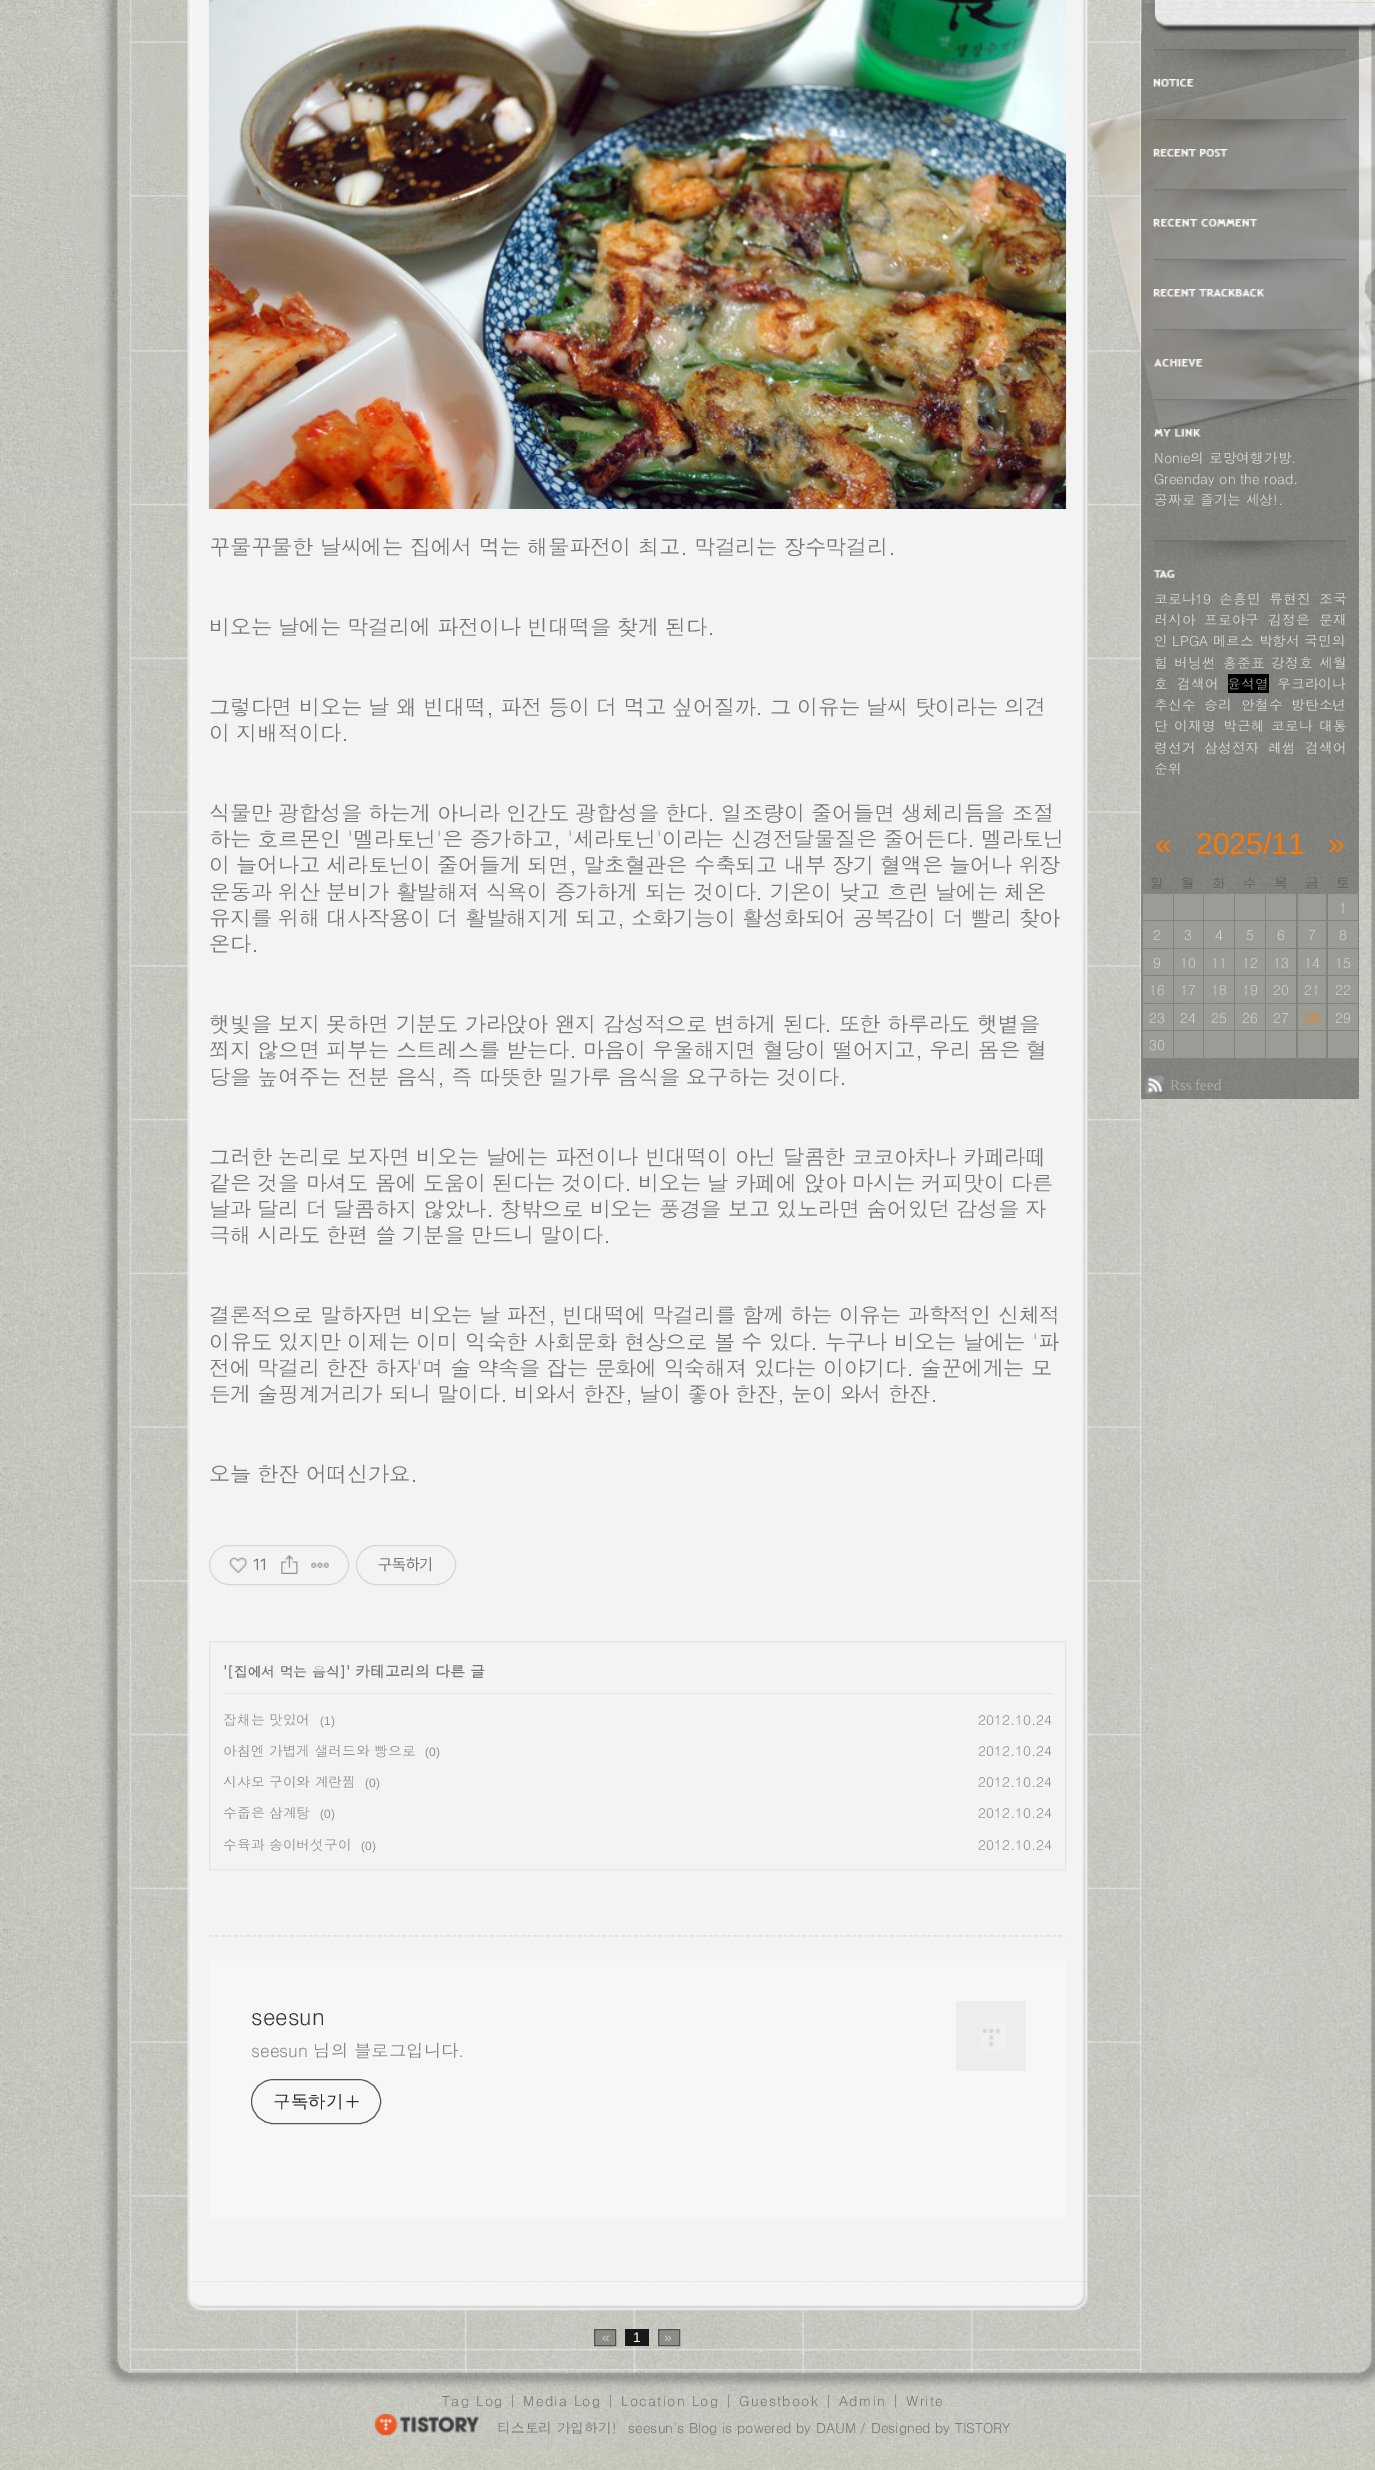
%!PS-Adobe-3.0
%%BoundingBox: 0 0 1375 2470
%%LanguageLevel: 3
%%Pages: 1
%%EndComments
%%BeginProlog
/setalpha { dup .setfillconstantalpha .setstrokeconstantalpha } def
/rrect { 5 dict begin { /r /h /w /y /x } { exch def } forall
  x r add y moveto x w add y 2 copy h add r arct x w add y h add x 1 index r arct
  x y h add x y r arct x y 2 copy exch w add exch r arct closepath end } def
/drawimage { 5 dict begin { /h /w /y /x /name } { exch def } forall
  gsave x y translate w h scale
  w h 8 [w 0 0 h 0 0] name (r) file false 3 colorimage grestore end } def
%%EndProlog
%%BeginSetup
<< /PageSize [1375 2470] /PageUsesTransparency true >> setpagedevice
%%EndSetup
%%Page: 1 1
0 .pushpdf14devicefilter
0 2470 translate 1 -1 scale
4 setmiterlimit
1 setgray
0 0 1375 2470 rectfill
(images/1.raw) 0 2450 1375 20 drawimage
(images/2.raw) 0 495 1375 1956 drawimage
(images/3.raw) 0 0 1375 496 drawimage
(images/4.raw) 187 0 901 2282 drawimage
(images/5.raw) 208 0 859 509 drawimage
0.839 setgray
209.5 1545.5 139 39 19.5 rrect stroke
(images/6.raw) 228 1557 20 16 drawimage
(images/7.raw) 281 1555 17 19 drawimage
(images/8.raw) 311 1562 18 6 drawimage
356.5 1545.5 99 39 19.5 rrect stroke
0.898 setgray
209.5 1641.5 856 228 rectstroke
223 1693 830 1 rectfill
(images/9.raw) 209 1935 857 2 drawimage
0.969 setgray
209 1961 857 258 rectfill
0.333 setgray
251.5 2079.5 129 44 22 rrect stroke
(images/10.raw) 346 2095 13 13 drawimage
(images/11.raw) 980 2024 26 26 drawimage
0.04 setalpha
0 setgray
956 2001 70 70 rectfill
1 setalpha
(images/12.raw) 187 2281 901 30 drawimage
0.549 0.553 0.529 setrgbcolor
newpath 594.5 2329.5 moveto 615.5 2329.5 lineto 615.5 2345.5 lineto 594.5 2345.5 lineto closepath gsave fill grestore
0.318 0.318 0.306 setrgbcolor
stroke
0.09 0.094 0.09 setrgbcolor
625 2329 24 17 rectfill
0.549 0.553 0.529 setrgbcolor
newpath 658.5 2329.5 moveto 679.5 2329.5 lineto 679.5 2345.5 lineto 658.5 2345.5 lineto closepath gsave fill grestore
0.318 0.318 0.306 setrgbcolor
stroke
(images/13.raw) 1141 0 234 3 drawimage
(images/14.raw) 1141 2 234 32 drawimage
0.35 setalpha
0 setgray
1141 34 218 1065 rectfill
1 setalpha
(images/15.raw) 1153 49 194 21 drawimage
(images/16.raw) 1153 79 41 8 drawimage
(images/17.raw) 1153 119 194 21 drawimage
(images/18.raw) 1153 149 75 8 drawimage
(images/19.raw) 1153 189 194 21 drawimage
(images/20.raw) 1153 219 105 8 drawimage
(images/21.raw) 1153 259 194 21 drawimage
(images/22.raw) 1153 289 112 8 drawimage
(images/23.raw) 1153 329 194 21 drawimage
(images/24.raw) 1153 359 50 8 drawimage
(images/25.raw) 1153 399 194 20 drawimage
(images/26.raw) 1153 429 48 8 drawimage
(images/27.raw) 1154 540 192 21 drawimage
(images/28.raw) 1153 570 22 8 drawimage
1228 674 41 19 rectfill
0.608 0.612 0.588 setrgbcolor
1143 894 30 26 rectfill
1174 894 29 26 rectfill
1204 894 30 26 rectfill
1235 894 30 26 rectfill
1266 894 30 26 rectfill
1298 894 28 26 rectfill
1328 894 30 26 rectfill
1143 921 30 27 rectfill
1174 921 29 27 rectfill
1204 921 30 27 rectfill
1235 921 30 27 rectfill
1266 921 30 27 rectfill
1298 921 28 27 rectfill
1328 921 30 27 rectfill
1143 949 30 26 rectfill
1174 949 29 26 rectfill
1204 949 30 26 rectfill
1235 949 30 26 rectfill
1266 949 30 26 rectfill
1298 949 28 26 rectfill
1328 949 30 26 rectfill
1143 976 30 27 rectfill
1174 976 29 27 rectfill
1204 976 30 27 rectfill
1235 976 30 27 rectfill
1266 976 30 27 rectfill
1298 976 28 27 rectfill
1328 976 30 27 rectfill
1143 1004 30 26 rectfill
1174 1004 29 26 rectfill
1204 1004 30 26 rectfill
1235 1004 30 26 rectfill
1266 1004 30 26 rectfill
1298 1004 28 26 rectfill
1328 1004 30 26 rectfill
1143 1031 30 27 rectfill
1174 1031 29 27 rectfill
1204 1031 30 27 rectfill
1235 1031 30 27 rectfill
1266 1031 30 27 rectfill
1298 1031 28 27 rectfill
1328 1031 30 27 rectfill
(images/29.raw) 1145 1075 20 20 drawimage
(images/30.raw) 0 2359 1375 92 drawimage
(images/31.raw) 375 2414 104 22 drawimage
/Dotum-Regular [21.25 0 0 -21.25 0 0] selectfont
0.467 setgray
209 555 moveto -0.43 0 (꾸물꾸물한 날씨에는 집에서 먹는 해물파전이 최고. 막걸리는 장수막걸리.) ashow
209 635 moveto -0.43 0 (비오는 날에는 막걸리에 파전이나 빈대떡을 찾게 된다.) ashow
209 715 moveto -0.43 0 (그렇다면 비오는 날 왜 빈대떡, 파전 등이 더 먹고 싶어질까. 그 이유는 날씨 탓이라는 의견) ashow
209 741 moveto -0.43 0 (이 지배적이다.) ashow
209 821 moveto -0.43 0 (식물만 광합성을 하는게 아니라 인간도 광합성을 한다. 일조량이 줄어들면 생체리듬을 조절) ashow
209 847 moveto -0.43 0 (하는 호르몬인 '멜라토닌'은 증가하고, '세라토닌'이라는 신경전달물질은 줄어든다. 멜라토닌) ashow
209 873 moveto -0.43 0 (이 늘어나고 세라토닌이 줄어들게 되면, 말초혈관은 수축되고 내부 장기 혈액은 늘어나 위장) ashow
209 900 moveto -0.43 0 (운동과 위산 분비가 활발해져 식욕이 증가하게 되는 것이다. 기온이 낮고 흐린 날에는 체온) ashow
209 926 moveto -0.43 0 (유지를 위해 대사작용이 더 활발해지게 되고, 소화기능이 활성화되어 공복감이 더 빨리 찾아) ashow
209 952 moveto -0.43 0 (온다.) ashow
209 1032 moveto -0.43 0 (햇빛을 보지 못하면 기분도 가라앉아 왠지 감성적으로 변하게 된다. 또한 하루라도 햇볕을) ashow
209 1058 moveto -0.43 0 (쬐지 않으면 피부는 스트레스를 받는다. 마음이 우울해지면 혈당이 떨어지고, 우리 몸은 혈) ashow
209 1085 moveto -0.43 0 (당을 높여주는 전분 음식, 즉 따뜻한 밀가루 음식을 요구하는 것이다.) ashow
209 1165 moveto -0.43 0 (그러한 논리로 보자면 비오는 날에는 파전이나 빈대떡이 아닌 달콤한 코코아차나 카페라떼) ashow
209 1191 moveto -0.43 0 (같은 것을 마셔도 몸에 도움이 된다는 것이다. 비오는 날 카페에 앉아 마시는 커피맛이 다른) ashow
209 1217 moveto -0.43 0 (날과 달리 더 달콤하지 않았나. 창밖으로 비오는 풍경을 보고 있노라면 숨어있던 감성을 자) ashow
209 1243 moveto -0.43 0 (극해 시라도 한편 쓸 기분을 만드니 말이다.) ashow
209 1323 moveto -0.43 0 (결론적으로 말하자면 비오는 날 파전, 빈대떡에 막걸리를 함께 하는 이유는 과학적인 신체적) ashow
209 1350 moveto -0.43 0 (이유도 있지만 이제는 이미 익숙한 사회문화 현상으로 볼 수 있다. 누구나 비오는 날에는 '파) ashow
209 1376 moveto -0.43 0 (전에 막걸리 한잔 하자'며 술 약속을 잡는 문화에 익숙해져 있다는 이야기다. 술꾼에게는 모) ashow
209 1402 moveto -0.43 0 (든게 술핑계거리가 되니 말이다. 비와서 한잔, 날이 좋아 한잔, 눈이 와서 한잔.) ashow
209 1482 moveto -0.43 0 (오늘 한잔 어떠신가요.) ashow
/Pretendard-Regular [16 0 0 -16 0 0] selectfont
253 1570 moveto (11) show
378 1570 moveto (구독하기) show
/Dotum-Bold [15 0 0 -15 0 0] selectfont
223 1677 moveto (') show
/Dotum-Bold [13.75 0 0 -13.75 0 0] selectfont
227 1677 moveto ([집에서 먹는 음식]) show
/Dotum-Bold [15 0 0 -15 0 0] selectfont
346 1677 moveto (' 카테고리의 다른 글) show
/Dotum-Regular [13.75 0 0 -13.75 0 0] selectfont
0.565 setgray
223 1725 moveto (잡채는 맛있어) show
/LiberationSans-Regular [12 0 0 -12 0 0] selectfont
320 1725 moveto (\(1\)) show
/Dotum-Regular [13.75 0 0 -13.75 0 0] selectfont
978 1725 moveto (2012.10.24) show
223 1756 moveto (아침엔 가볍게 샐러드와 빵으로) show
/LiberationSans-Regular [12 0 0 -12 0 0] selectfont
425 1756 moveto (\(0\)) show
/Dotum-Regular [13.75 0 0 -13.75 0 0] selectfont
978 1756 moveto (2012.10.24) show
223 1787 moveto (시샤모 구이와 계란찜) show
/LiberationSans-Regular [12 0 0 -12 0 0] selectfont
365 1787 moveto (\(0\)) show
/Dotum-Regular [13.75 0 0 -13.75 0 0] selectfont
978 1787 moveto (2012.10.24) show
223 1818 moveto (수줍은 삼계탕) show
/LiberationSans-Regular [12 0 0 -12 0 0] selectfont
320 1818 moveto (\(0\)) show
/Dotum-Regular [13.75 0 0 -13.75 0 0] selectfont
978 1818 moveto (2012.10.24) show
223 1850 moveto (수육과 송이버섯구이) show
/LiberationSans-Regular [12 0 0 -12 0 0] selectfont
361 1850 moveto (\(0\)) show
/Dotum-Regular [13.75 0 0 -13.75 0 0] selectfont
978 1850 moveto (2012.10.24) show
/Dotum-Regular [22.5 0 0 -22.5 0 0] selectfont
0.2 setgray
251 2025 moveto (seesun) show
/Dotum-Regular [17.5 0 0 -17.5 0 0] selectfont
0.533 setgray
251 2057 moveto -0.1 0 (seesun 님의 블로그입니다.) ashow
/WenQuanYiZenHei-Medium [17.5 0 0 -17.5 0 0] selectfont
0.133 setgray
273 2107 moveto (구독하기) show
/LiberationSans-Regular [13.75 0 0 -13.75 0 0] selectfont
0.82 setgray
602 2342 moveto («) show
1 setgray
633 2342 moveto (1) show
0.82 setgray
664 2342 moveto (») show
/Dotum-Regular [13.75 0 0 -13.75 0 0] selectfont
0.855 0.859 0.851 setrgbcolor
1154 463 moveto (Nonie의 로망여행가방.) show
1154 484 moveto (Greenday on the road.) show
1154 505 moveto (공짜로 즐기는 세상!.) show
1154 604 moveto (코로나19) show
1219 604 moveto (손흥민) show
1269 604 moveto (류현진) show
1319 604 moveto (조국) show
1154 625 moveto (러시아) show
1204 625 moveto (프로야구) show
1268 625 moveto (김정은) show
1319 625 moveto (문재) show
1154 646 moveto (인 LPGA 메르스 박항서 국민의) show
1154 668 moveto (힘) show
1174 668 moveto (버닝썬) show
1223 668 moveto (홍준표) show
1271 668 moveto (강정호) show
1319 668 moveto (세월) show
1154 689 moveto (호) show
1177 689 moveto (검색어) show
0.6 setgray
1227 689 moveto (윤석열) show
0.855 0.859 0.851 setrgbcolor
1277 689 moveto (우크라이나) show
1154 710 moveto (추신수) show
1204 710 moveto (승리) show
1241 710 moveto (안철수) show
1291 710 moveto (방탄소년) show
1154 731 moveto (단) show
1174 731 moveto (이재명) show
1223 731 moveto (박근혜) show
1271 731 moveto (코로나) show
1319 731 moveto (대통) show
1154 753 moveto (령선거) show
1204 753 moveto (삼성전자) show
1268 753 moveto (레썸) show
1305 753 moveto (검색어) show
1154 774 moveto (순위) show
/LiberationSans-Regular [30 0 0 -30 0 0] selectfont
1 0.471 0 setrgbcolor
1155 854 moveto («) show
1196 854 moveto (2025/11) show
1328 854 moveto (») show
/Gulim-Regular [13.75 0 0 -13.75 0 0] selectfont
0.357 setgray
1150 888 moveto (일) show
1181 888 moveto (월) show
1212 888 moveto (화) show
1243 888 moveto (수) show
1274 888 moveto (목) show
1305 888 moveto (금) show
1336 888 moveto (토) show
0.82 setgray
1339 913 moveto (1) show
1153 940 moveto (2) show
1184 940 moveto (3) show
1215 940 moveto (4) show
1246 940 moveto (5) show
1277 940 moveto (6) show
1308 940 moveto (7) show
1339 940 moveto (8) show
1153 968 moveto (9) show
1180 968 moveto (10) show
1211 968 moveto (11) show
1242 968 moveto (12) show
1273 968 moveto (13) show
1304 968 moveto (14) show
1335 968 moveto (15) show
1149 995 moveto (16) show
1180 995 moveto (17) show
1211 995 moveto (18) show
1242 995 moveto (19) show
1273 995 moveto (20) show
1304 995 moveto (21) show
1335 995 moveto (22) show
1149 1023 moveto (23) show
1180 1023 moveto (24) show
1211 1023 moveto (25) show
1242 1023 moveto (26) show
1273 1023 moveto (27) show
1 0.471 0 setrgbcolor
1304 1023 moveto (28) show
0.82 setgray
1335 1023 moveto (29) show
1149 1050 moveto (30) show
/LiberationSerif-Regular [15 0 0 -15 0 0] selectfont
0.678 setgray
1170 1090 moveto (Rss feed) show
/Dotum-Regular [13.75 0 0 -13.75 0 0] selectfont
0.467 setgray
442 2406 moveto 1.25 0 (Tag Log | Media Log | Location Log | Guestbook | Admin | Write) ashow
497 2433 moveto (티스토리 가입하기!) show
628 2433 moveto (seesun's Blog is powered by DAUM / Designed by TISTORY) show
.poppdf14devicefilter showpage
%%EOF
